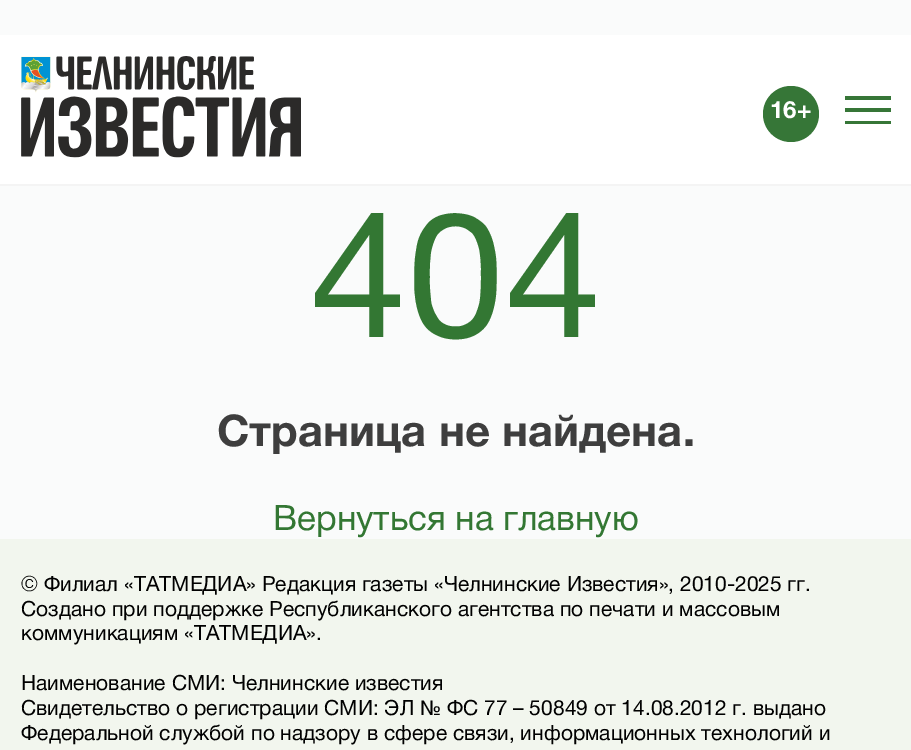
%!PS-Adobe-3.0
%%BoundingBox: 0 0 911 750
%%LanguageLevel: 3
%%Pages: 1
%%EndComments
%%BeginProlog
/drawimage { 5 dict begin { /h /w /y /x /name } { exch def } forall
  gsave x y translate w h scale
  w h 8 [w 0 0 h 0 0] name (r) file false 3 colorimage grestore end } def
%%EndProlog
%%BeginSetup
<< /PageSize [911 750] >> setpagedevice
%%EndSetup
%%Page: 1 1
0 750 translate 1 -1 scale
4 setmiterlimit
0.98 0.984 0.984 setrgbcolor
0 0 911 750 rectfill
1 setgray
0 35 911 149 rectfill
0.957 setgray
0 184 911 2 rectfill
(images/1.raw) 21 56 280 102 drawimage
0.212 0.463 0.216 setrgbcolor
newpath 791 114 28 0 360 arc closepath fill
845 96 46 4 rectfill
845 108 46 4 rectfill
845 121 46 3 rectfill
0.949 0.965 0.933 setrgbcolor
0 539 911 211 rectfill
/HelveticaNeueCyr-Bold [24 0 0 -24 0 0] selectfont
1 setgray
770 118 moveto (16+) show
/HelveticaNeueCyr-Regular [175 0 0 -175 0 0] selectfont
0.2 0.467 0.2 setrgbcolor
310 337 moveto (404) show
/HelveticaNeueCyr-Bold [43.75 0 0 -43.75 0 0] selectfont
0.243 setgray
217 446 moveto (Страница не найдена.) show
/HelveticaNeueCyr-Regular [35 0 0 -35 0 0] selectfont
0.2 0.467 0.2 setrgbcolor
273 530 moveto (Вернуться на главную) show
/HelveticaNeueCyr-Regular [21 0 0 -21 0 0] selectfont
0 setgray
21 591 moveto (© Филиал «ТАТМЕДИА» Редакция газеты «Челнинские Известия», 2010-2025 гг.) show
21 616 moveto (Создано при поддержке Республиканского агентства по печати и массовым) show
21 640 moveto (коммуникациям «ТАТМЕДИА».) show
21 690 moveto (Наименование СМИ: Челнинские известия) show
21 715 moveto (Свидетельство о регистрации СМИ: ЭЛ № ФС 77 – 50849 от 14.08.2012 г. выдано) show
21 740 moveto (Федеральной службой по надзору в сфере связи, информационных технологий и) show
showpage
%%EOF
